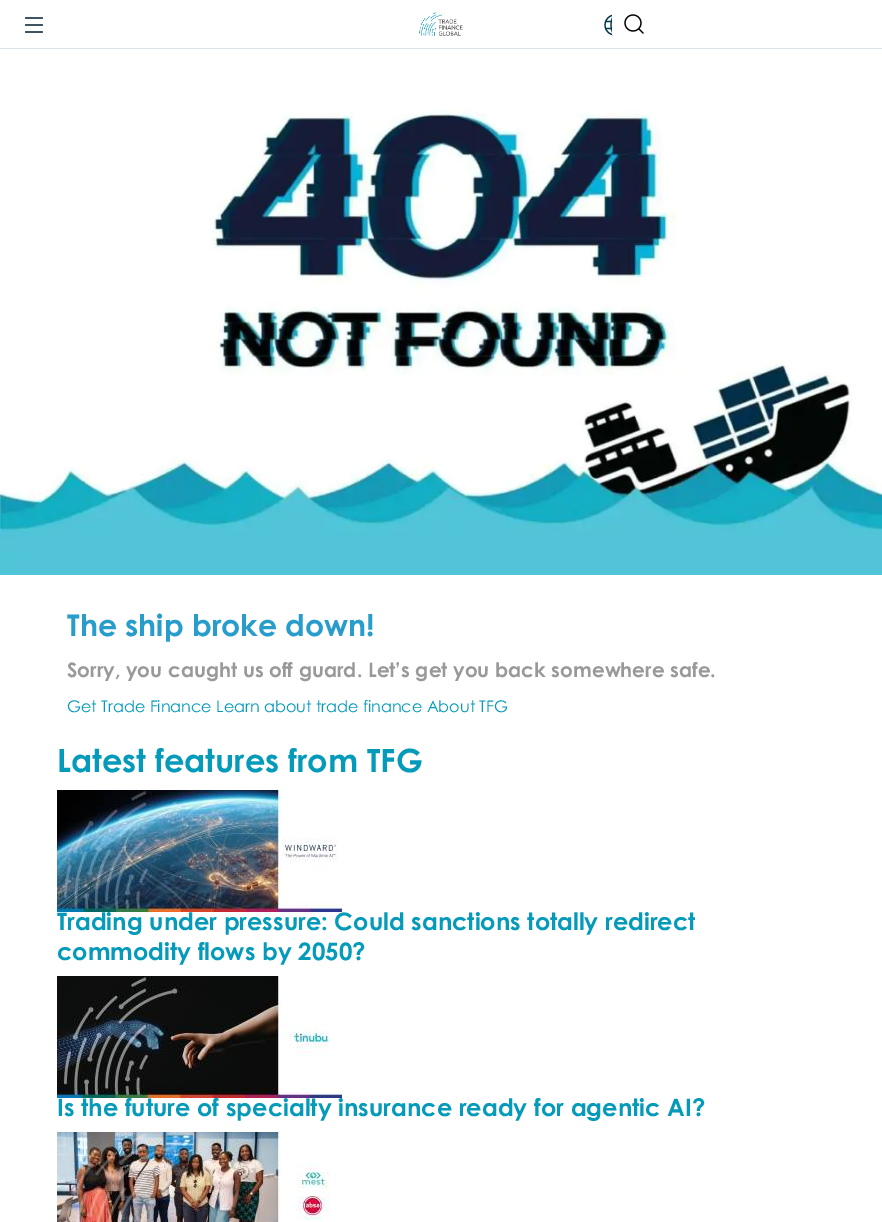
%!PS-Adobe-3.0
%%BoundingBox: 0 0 882 1222
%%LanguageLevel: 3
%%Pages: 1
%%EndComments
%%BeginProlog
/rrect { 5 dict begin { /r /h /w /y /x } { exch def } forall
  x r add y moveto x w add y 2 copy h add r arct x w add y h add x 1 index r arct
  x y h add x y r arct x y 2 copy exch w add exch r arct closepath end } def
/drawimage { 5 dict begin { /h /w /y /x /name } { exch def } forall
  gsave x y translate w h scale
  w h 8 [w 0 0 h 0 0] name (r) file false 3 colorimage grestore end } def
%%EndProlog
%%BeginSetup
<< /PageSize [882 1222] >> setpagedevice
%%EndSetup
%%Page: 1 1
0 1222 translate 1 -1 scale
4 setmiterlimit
1 setgray
0 0 882 1222 rectfill
0.863 0.89 0.91 setrgbcolor
0 48 882 1 rectfill
0.243 0.329 0.388 setrgbcolor
25 24 18 2 1 rrect fill
25 17 18 2 1 rrect fill
25 31 18 2 1 rrect fill
(images/1.raw) 419 12 44 24 drawimage
(images/2.raw) 604 14 10 22 drawimage
1 setgray
612 12 34 24 2 rrect fill
(images/3.raw) 624 14 20 20 drawimage
(images/4.raw) 0 109 882 466 drawimage
(images/5.raw) 57 790 285 122 drawimage
(images/6.raw) 57 976 285 122 drawimage
(images/7.raw) 57 1132 273 90 drawimage
/CenturyGothic-Bold [30 0 0 -30 0 0] selectfont
0.157 0.616 0.8 setrgbcolor
67 636 moveto (The ship broke down!) show
/CenturyGothic-Bold [20 0 0 -20 0 0] selectfont
0.6 setgray
67 677 moveto (Sorry, you caught us off guard. Let’s get you back somewhere safe.) show
/CenturyGothic-Regular [16 0 0 -16 0 0] selectfont
0.016 0.604 0.729 setrgbcolor
67 712 moveto (Get Trade Finance Learn about trade finance About TFG) show
/CenturyGothic-Bold [32 0 0 -32 0 0] selectfont
57 772 moveto (Latest features from TFG) show
/CenturyGothic-Bold [24 0 0 -24 0 0] selectfont
57 930 moveto (Trading under pressure: Could sanctions totally redirect) show
57 960 moveto (commodity flows by 2050?) show
57 1116 moveto (Is the future of specialty insurance ready for agentic AI?) show
showpage
%%EOF
